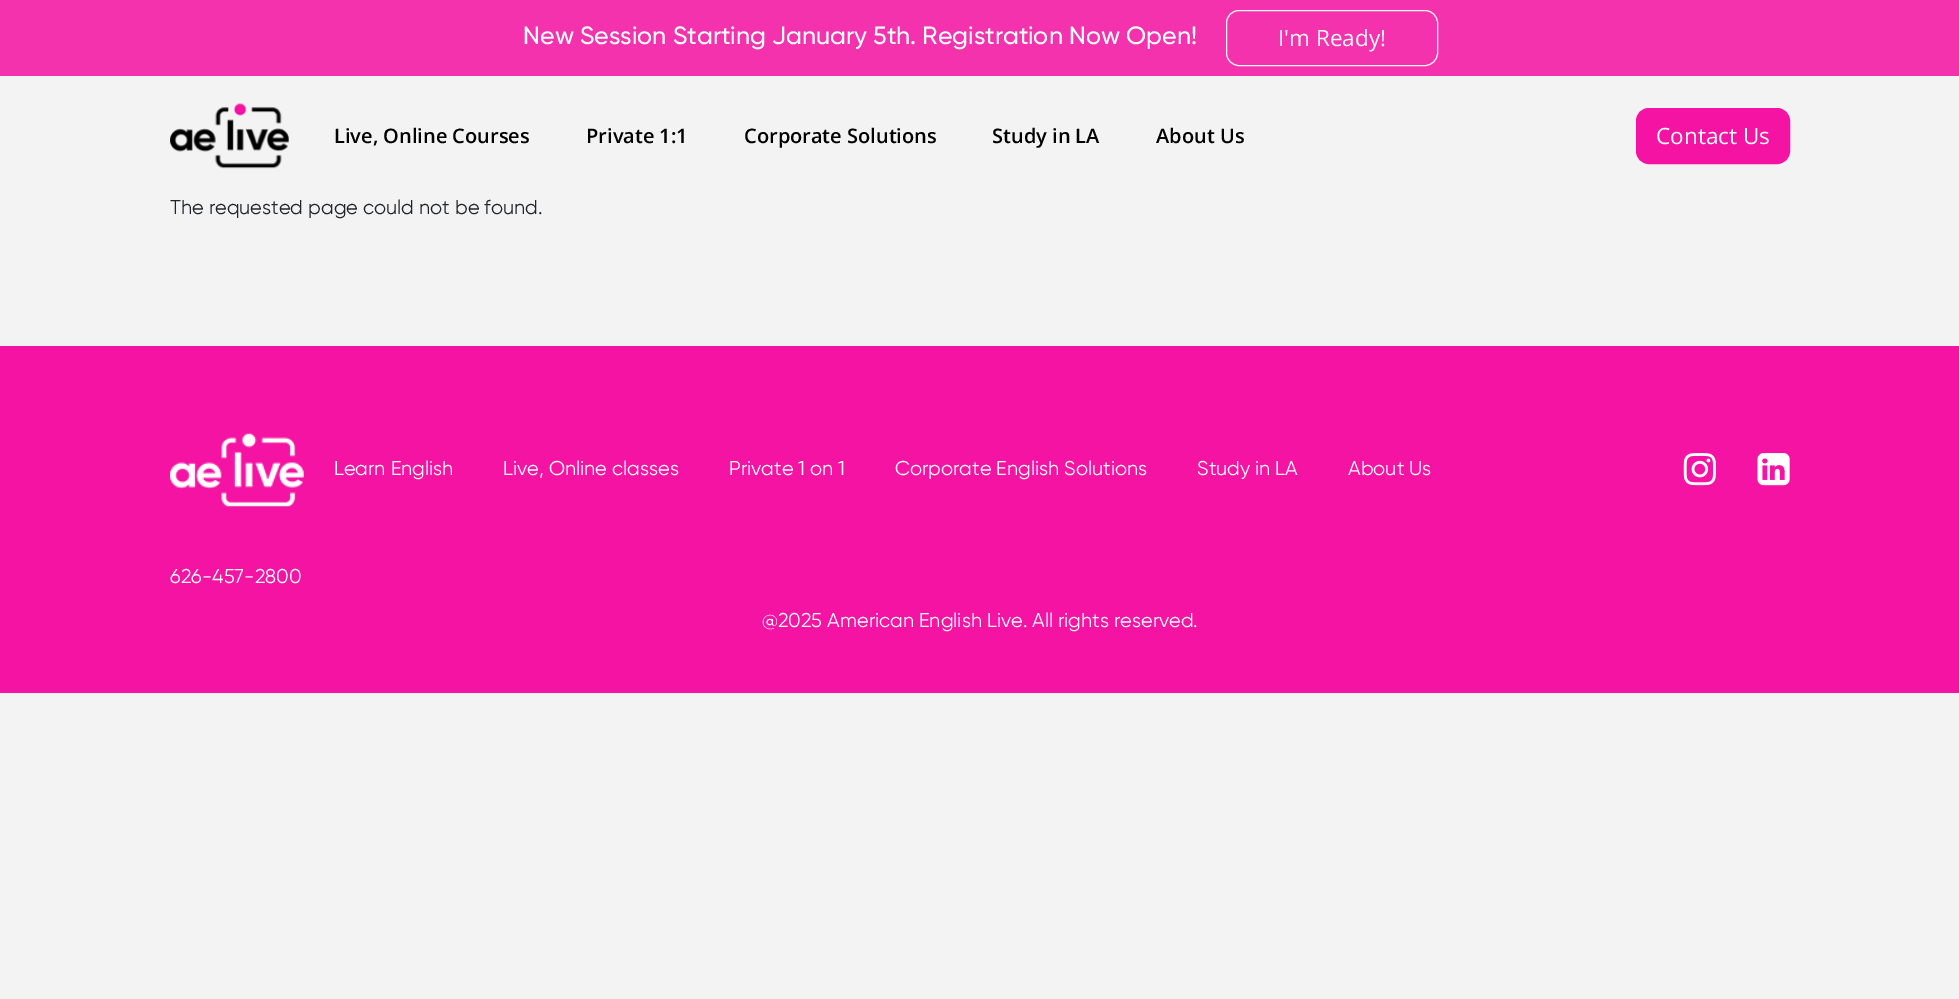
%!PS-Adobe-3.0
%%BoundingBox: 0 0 1959 999
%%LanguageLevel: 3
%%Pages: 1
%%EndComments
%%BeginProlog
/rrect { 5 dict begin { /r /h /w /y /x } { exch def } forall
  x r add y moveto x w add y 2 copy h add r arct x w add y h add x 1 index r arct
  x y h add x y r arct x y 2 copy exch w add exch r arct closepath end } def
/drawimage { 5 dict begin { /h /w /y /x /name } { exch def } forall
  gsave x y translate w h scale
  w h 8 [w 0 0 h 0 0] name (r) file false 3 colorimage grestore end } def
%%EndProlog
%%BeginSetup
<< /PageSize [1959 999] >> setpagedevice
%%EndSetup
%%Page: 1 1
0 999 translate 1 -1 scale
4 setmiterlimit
0.953 setgray
0 0 1959 999 rectfill
0.957 0.196 0.682 setrgbcolor
0 0 1959 76 rectfill
0.973 0.976 0.98 setrgbcolor
1226.5 10.5 211 55 12.5 rrect stroke
(images/1.raw) 170 103 119 66 drawimage
0.961 0.075 0.639 setrgbcolor
1636.5 108.5 153 55 12.5 rrect gsave fill grestore
stroke
0 346 1959 347 rectfill
(images/2.raw) 170 433 134 74 drawimage
(images/3.raw) 1683 453 33 33 drawimage
(images/4.raw) 1757 453 33 33 drawimage
/Gilroy-Medium [25 0 0 -25 0 0] selectfont
1 setgray
523 44 moveto (New Session Starting January 5th. Registration Now Open!) show
/OpenSans-Regular [22.5 0 0 -22.5 0 0] selectfont
0.973 0.976 0.98 setrgbcolor
1278 46 moveto (I'm Ready!) show
/OpenSans-SemiBold [20 0 0 -20 0 0] selectfont
0 setgray
334 143 moveto (Live, Online Courses) show
586 143 moveto (Private 1:1) show
744 143 moveto (Corporate Solutions) show
992 143 moveto (Study in LA) show
1156 143 moveto (About Us) show
/OpenSans-Regular [22.5 0 0 -22.5 0 0] selectfont
1 setgray
1656 144 moveto (Contact Us) show
/Gilroy-Regular [20 0 0 -20 0 0] selectfont
0.129 0.145 0.161 setrgbcolor
170 214 moveto (The requested page could not be found.) show
1 setgray
334 475 moveto (Learn English) show
503 475 moveto (Live, Online classes) show
729 475 moveto (Private 1 on 1) show
895 475 moveto (Corporate English Solutions) show
1197 475 moveto (Study in LA) show
1348 475 moveto (About Us) show
170 583 moveto (626-457-2800) show
762 627 moveto (@2025 American English Live. All rights reserved.) show
showpage
%%EOF
